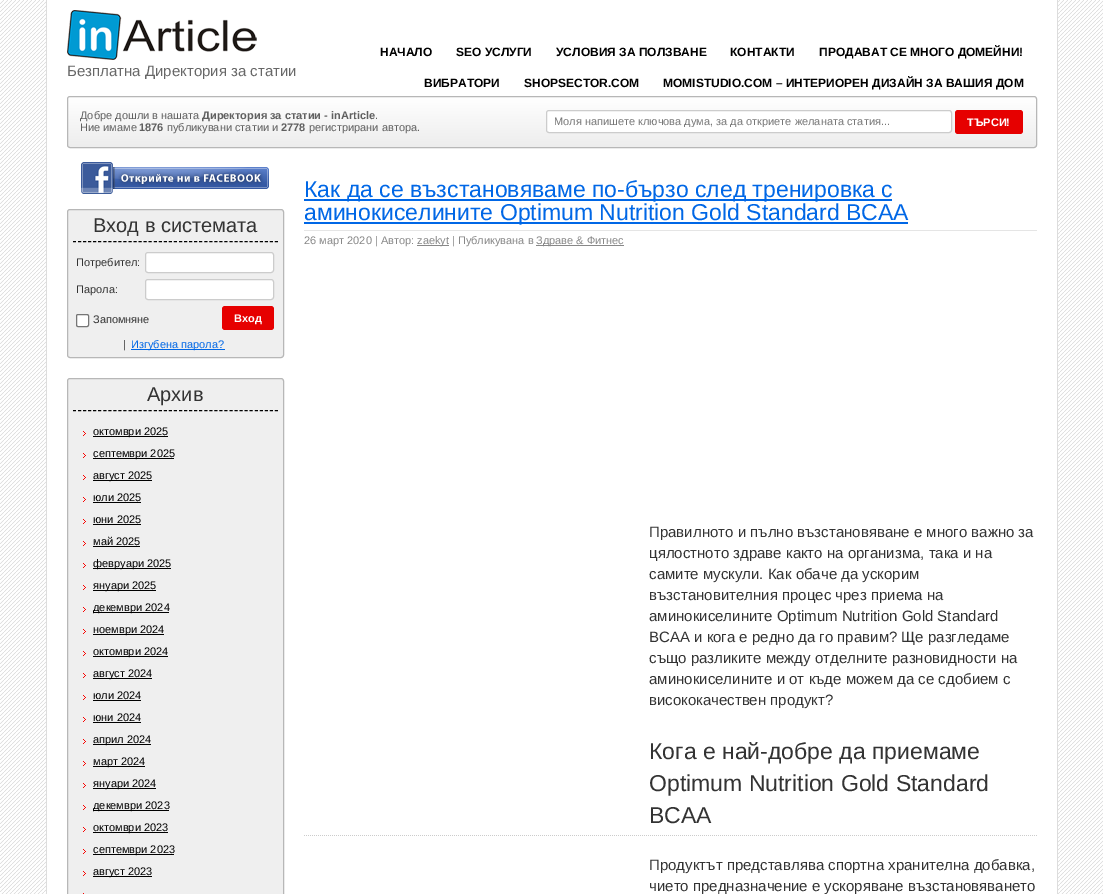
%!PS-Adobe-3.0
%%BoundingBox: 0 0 1103 894
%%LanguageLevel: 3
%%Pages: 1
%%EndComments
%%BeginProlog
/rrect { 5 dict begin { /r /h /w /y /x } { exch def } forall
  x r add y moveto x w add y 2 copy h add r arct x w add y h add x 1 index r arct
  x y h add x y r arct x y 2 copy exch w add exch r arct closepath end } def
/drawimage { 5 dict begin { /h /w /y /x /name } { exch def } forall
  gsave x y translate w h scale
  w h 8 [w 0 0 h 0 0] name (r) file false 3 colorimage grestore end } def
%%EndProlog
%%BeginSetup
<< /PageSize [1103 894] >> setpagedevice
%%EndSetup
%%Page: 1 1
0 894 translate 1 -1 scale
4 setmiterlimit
1 setgray
0 0 1103 894 rectfill
(images/1.raw) 0 0 1103 894 drawimage
47 0 1010 894 rectfill
0.867 setgray
1057 0 1 894 rectfill
46 0 1 894 rectfill
gsave
67 96 970 52 3 rrect clip newpath
gsave newpath 67 97 moveto 1037 97 lineto 1037 147 lineto 67 147 lineto closepath clip newpath
<< /ShadingType 2 /ColorSpace /DeviceRGB /Coords [68 97 68 147] /Extend [true true] /Function << /FunctionType 2 /Domain [0 1] /C0 [1 1 1] /C1 [0.929 0.929 0.929] /N 1 >> >> shfill grestore
grestore
0.718 setgray
67.5 96.5 969 51 2.5 rrect stroke
1 setgray
546.5 110.5 405 22 2.5 rrect gsave fill grestore
0.8 setgray
stroke
0.902 0 0 setrgbcolor
955 110 68 24 3 rrect fill
(images/2.raw) 67 10 190 50 drawimage
(images/3.raw) 81 162 188 32 drawimage
0.937 setgray
67.5 209.5 216 148 2.5 rrect gsave fill grestore
0.718 setgray
stroke
0 setgray
[3 2.05] 0 setdash
newpath 73 241.5 moveto 278 241.5 lineto stroke
1 setgray
145.5 252.5 128 20 2.5 rrect gsave fill grestore
0.8 setgray
[] 0 setdash
stroke
1 setgray
145.5 279.5 128 20 2.5 rrect gsave fill grestore
0.8 setgray
stroke
1 setgray
76.5 314.5 12 12 1.5 rrect gsave fill grestore
0.463 setgray
stroke
0.902 0 0 setrgbcolor
222 306 52 24 3 rrect fill
0 0.404 0.902 setrgbcolor
131 349 94 1 rectfill
0.937 setgray
67.5 378.5 216 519 2.5 rrect gsave fill grestore
0.718 setgray
stroke
0 setgray
[3 2.05] 0 setdash
newpath 73 410.5 moveto 278 410.5 lineto stroke
(images/4.raw) 83 431 3 5 drawimage
93 436 75 1 rectfill
(images/4.raw) 83 453 3 5 drawimage
93 458 81 1 rectfill
(images/4.raw) 83 475 3 5 drawimage
93 480 59 1 rectfill
(images/4.raw) 83 497 3 5 drawimage
93 502 48 1 rectfill
(images/4.raw) 83 519 3 5 drawimage
93 524 48 1 rectfill
(images/4.raw) 83 541 3 5 drawimage
93 546 47 1 rectfill
(images/4.raw) 83 563 3 5 drawimage
93 568 78 1 rectfill
(images/4.raw) 83 585 3 5 drawimage
93 590 63 1 rectfill
(images/4.raw) 83 607 3 5 drawimage
93 612 76 1 rectfill
(images/4.raw) 83 629 3 5 drawimage
93 634 71 1 rectfill
(images/4.raw) 83 651 3 5 drawimage
93 656 75 1 rectfill
(images/4.raw) 83 673 3 5 drawimage
93 678 59 1 rectfill
(images/4.raw) 83 695 3 5 drawimage
93 700 48 1 rectfill
(images/4.raw) 83 717 3 5 drawimage
93 722 48 1 rectfill
(images/4.raw) 83 739 3 5 drawimage
93 744 58 1 rectfill
(images/4.raw) 83 761 3 5 drawimage
93 766 52 1 rectfill
(images/4.raw) 83 783 3 5 drawimage
93 788 63 1 rectfill
(images/4.raw) 83 805 3 5 drawimage
93 810 76 1 rectfill
(images/4.raw) 83 827 3 5 drawimage
93 832 75 1 rectfill
(images/4.raw) 83 849 3 5 drawimage
93 854 81 1 rectfill
(images/4.raw) 83 871 3 5 drawimage
93 876 59 1 rectfill
0.976 0.012 0 setrgbcolor
83 893 1 1 rectfill
0.898 setgray
304 230 733 1 rectfill
0 0.404 0.902 setrgbcolor
304 199 588 2 rectfill
304 222 604 2 rectfill
0.533 setgray
417 245 32 1 rectfill
536 245 88 1 rectfill
(images/5.raw) 304 835 733 1 drawimage
/LiberationSans-Regular [11 0 0 -11 0 0] selectfont
0.376 setgray
80 119 moveto (Добре дошли в нашата) show
/LiberationSans-Bold [11 0 0 -11 0 0] selectfont
202 119 moveto (Директория за статии - inArticle) show
/LiberationSans-Regular [11 0 0 -11 0 0] selectfont
375 119 moveto (.) show
80 131 moveto (Ние имаме) show
/LiberationSans-Bold [11 0 0 -11 0 0] selectfont
139 131 moveto (1876) show
/LiberationSans-Regular [11 0 0 -11 0 0] selectfont
167 131 moveto (публикувани статии и) show
/LiberationSans-Bold [11 0 0 -11 0 0] selectfont
281 131 moveto (2778) show
/LiberationSans-Regular [11 0 0 -11 0 0] selectfont
309 131 moveto (регистрирани автора.) show
/LiberationSans-Bold [12 0 0 -12 0 0] selectfont
0 setgray
380 56 moveto (НАЧАЛО) show
456 56 moveto (SEO УСЛУГИ) show
556 56 moveto (УСЛОВИЯ ЗА ПОЛЗВАНЕ) show
730 56 moveto (КОНТАКТИ) show
819 56 moveto (ПРОДАВАТ СЕ МНОГО ДОМЕЙНИ!) show
424 87 moveto (ВИБРАТОРИ) show
524 87 moveto (SHOPSECTOR.COM) show
663 87 moveto (MOMISTUDIO.COM – ИНТЕРИОРЕН ДИЗАЙН ЗА ВАШИЯ ДОМ) show
gsave
554 115 390 12 rectclip
/LiberationSans-Regular [11 0 0 -11 0 0] selectfont
0.467 setgray
554 125 moveto (Моля напишете ключова дума, за да откриете желаната статия...) show
grestore
/LiberationSans-Bold [11 0 0 -11 0 0] selectfont
1 setgray
967 126 moveto (ТЪРСИ!) show
/LiberationSans-Regular [15 0 0 -15 0 0] selectfont
0.404 setgray
67 76 moveto (Безплатна Директория за статии) show
/LiberationSans-Regular [20 0 0 -20 0 0] selectfont
0.2 setgray
93 232 moveto (Вход в системата) show
/LiberationSans-Regular [11 0 0 -11 0 0] selectfont
76 266 moveto (Потребител:) show
76 293 moveto (Парола:) show
93 323 moveto (Запомняне) show
/LiberationSans-Bold [11 0 0 -11 0 0] selectfont
1 setgray
234 322 moveto (Вход) show
/LiberationSans-Regular [11 0 0 -11 0 0] selectfont
0.2 setgray
123 348 moveto (|) show
0 0.404 0.902 setrgbcolor
131 348 moveto (Изгубена парола?) show
/LiberationSans-Regular [20 0 0 -20 0 0] selectfont
0.2 setgray
147 401 moveto (Архив) show
/LiberationSans-Regular [11 0 0 -11 0 0] selectfont
0 setgray
93 435 moveto (октомври 2025) show
93 457 moveto (септември 2025) show
93 479 moveto (август 2025) show
93 501 moveto (юли 2025) show
93 523 moveto (юни 2025) show
93 545 moveto (май 2025) show
93 567 moveto (февруари 2025) show
93 589 moveto (януари 2025) show
93 611 moveto (декември 2024) show
93 633 moveto (ноември 2024) show
93 655 moveto (октомври 2024) show
93 677 moveto (август 2024) show
93 699 moveto (юли 2024) show
93 721 moveto (юни 2024) show
93 743 moveto (април 2024) show
93 765 moveto (март 2024) show
93 787 moveto (януари 2024) show
93 809 moveto (декември 2023) show
93 831 moveto (октомври 2023) show
93 853 moveto (септември 2023) show
93 875 moveto (август 2023) show
/LiberationSans-Regular [23 0 0 -23 0 0] selectfont
0 0.404 0.902 setrgbcolor
304 197 moveto (Как да се възстановяваме по-бързо след тренировка с) show
304 220 moveto (аминокиселините Optimum Nutrition Gold Standard BCAA) show
/LiberationSans-Regular [11 0 0 -11 0 0] selectfont
0.533 setgray
304 244 moveto (26 март 2020 | Автор:) show
417 244 moveto (zaekyt | Публикувана в) show
536 244 moveto (Здраве & Фитнес) show
/LiberationSans-Regular [15 0 0 -15 0 0] selectfont
0.2 setgray
649 537 moveto (Правилното и пълно възстановяване е много важно за) show
649 558 moveto (цялостното здраве както на организма, така и на) show
649 579 moveto (самите мускули. Как обаче да ускорим) show
649 600 moveto (възстановителния процес чрез приема на) show
649 621 moveto (аминокиселините Optimum Nutrition Gold Standard) show
649 642 moveto (BCAA и кога е редно да го правим? Ще разгледаме) show
649 663 moveto (също разликите между отделните разновидности на) show
649 684 moveto (аминокиселините и от къде можем да се сдобием с) show
649 705 moveto (висококачествен продукт?) show
/LiberationSans-Regular [23 0 0 -23 0 0] selectfont
649 759 moveto (Кога е най-добре да приемаме) show
649 791 moveto (Optimum Nutrition Gold Standard) show
649 823 moveto (BCAA) show
/LiberationSans-Regular [15 0 0 -15 0 0] selectfont
649 870 moveto (Продуктът представлява спортна хранителна добавка,) show
649 891 moveto (чието предназначение е ускоряване възстановяването) show
showpage
%%EOF
